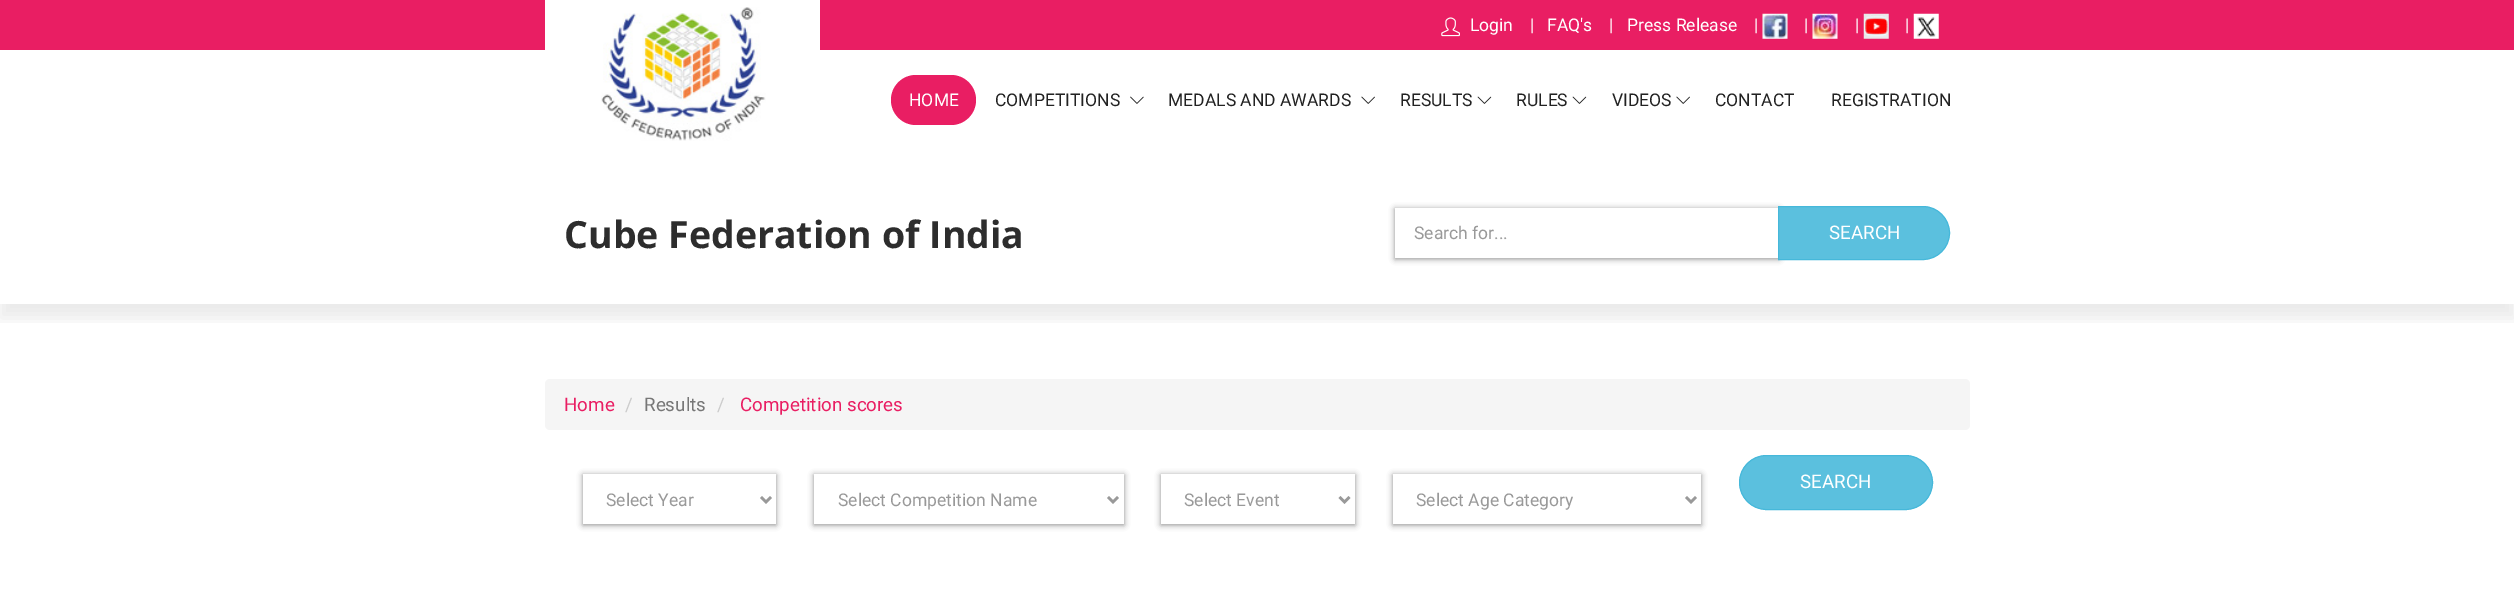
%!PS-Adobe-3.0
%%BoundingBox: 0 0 2514 615
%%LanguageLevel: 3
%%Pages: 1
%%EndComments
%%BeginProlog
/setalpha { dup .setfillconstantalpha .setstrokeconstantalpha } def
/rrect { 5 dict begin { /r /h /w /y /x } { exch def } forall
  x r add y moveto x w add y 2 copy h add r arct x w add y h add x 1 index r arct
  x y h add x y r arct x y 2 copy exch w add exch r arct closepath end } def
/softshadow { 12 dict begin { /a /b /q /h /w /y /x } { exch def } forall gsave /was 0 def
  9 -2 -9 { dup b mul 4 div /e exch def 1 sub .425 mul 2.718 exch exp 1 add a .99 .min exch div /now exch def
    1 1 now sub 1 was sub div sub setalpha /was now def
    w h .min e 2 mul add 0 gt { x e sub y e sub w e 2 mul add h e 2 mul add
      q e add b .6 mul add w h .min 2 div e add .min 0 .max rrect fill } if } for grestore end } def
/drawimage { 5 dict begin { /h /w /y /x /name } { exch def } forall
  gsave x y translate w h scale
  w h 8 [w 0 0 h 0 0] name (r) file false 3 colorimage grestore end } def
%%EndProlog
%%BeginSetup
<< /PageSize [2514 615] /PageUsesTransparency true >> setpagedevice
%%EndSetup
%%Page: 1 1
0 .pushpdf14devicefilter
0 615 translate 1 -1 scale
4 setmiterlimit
1 setgray
0 0 2514 615 rectfill
0.914 0.118 0.388 setrgbcolor
0 0 2514 50 rectfill
(images/1.raw) 1441 17 19 20 drawimage
(images/2.raw) 1762 13 26 26 drawimage
(images/3.raw) 1812 13 26 26 drawimage
(images/4.raw) 1863 13 26 26 drawimage
(images/5.raw) 1913 13 26 26 drawimage
1 setgray
545 0 275 50 rectfill
gsave
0 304 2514 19 rectclip
0 setgray
0 164 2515 154 0 8 0.08 softshadow
grestore
(images/6.raw) 601 7 165 134 drawimage
0.914 0.118 0.388 setrgbcolor
891 75 85 50 25 rrect fill
(images/7.raw) 1130 96 14 8 drawimage
(images/8.raw) 1361 96 14 8 drawimage
(images/9.raw) 1477 96 15 8 drawimage
(images/9.raw) 1572 96 15 8 drawimage
(images/8.raw) 1676 96 14 8 drawimage
0.043 setgray
1395 209 384 50 0 3 0.48 softshadow
1 setgray
1395 208 383 50 rectfill
0.357 0.753 0.871 setrgbcolor
newpath 1778.5 206.5 moveto 1923 206.5 lineto 1937.5 206.5 1949.5 218.5 1949.5 233 curveto 1949.5 247.5 1937.5 259.5 1923 259.5 curveto 1778.5 259.5 lineto closepath gsave fill grestore
0.275 0.722 0.855 setrgbcolor
stroke
0.961 setgray
545 379 1425 51 5 rrect fill
0.357 0.753 0.871 setrgbcolor
1739.5 455.5 193 54 27 rrect gsave fill grestore
0.275 0.722 0.855 setrgbcolor
stroke
0.043 setgray
583 475 193 50 0 3 0.48 softshadow
1 setgray
583 474 193 50 rectfill
0.6 setgray
2.5 setlinewidth
newpath 761 497 moveto 766 502 lineto 771 497 lineto stroke
0.043 setgray
814 475 310 50 0 3 0.48 softshadow
1 setgray
814 474 310 50 rectfill
0.6 setgray
newpath 1108 497 moveto 1113 502 lineto 1118 497 lineto stroke
0.043 setgray
1161 475 194 50 0 3 0.48 softshadow
1 setgray
1161 474 194 50 rectfill
0.6 setgray
newpath 1339.5 497 moveto 1344.5 502 lineto 1349.5 497 lineto stroke
0.043 setgray
1393 475 308 50 0 3 0.48 softshadow
1 setgray
1393 474 308 50 rectfill
0.6 setgray
newpath 1686 497 moveto 1691 502 lineto 1696 497 lineto stroke
/Roboto-Regular [17.5 0 0 -17.5 0 0] selectfont
1 setgray
1470 31 moveto (Login) show
1530 31 moveto (|) show
1547 31 moveto (FAQ's) show
1609 31 moveto (|) show
1627 31 moveto (Press Release) show
1754 31 moveto (|) show
1804 31 moveto (|) show
1855 31 moveto (|) show
1905 31 moveto (|) show
909 106 moveto (HOME) show
0.133 setgray
995 106 moveto (COMPETITIONS) show
1168 106 moveto (MEDALS AND AWARDS) show
1400 106 moveto (RESULTS) show
1516 106 moveto (RULES) show
1612 106 moveto (VIDEOS) show
1715 106 moveto (CONTACT) show
1831 106 moveto (REGISTRATION) show
/OpenSans-Bold [37.5 0 0 -37.5 0 0] selectfont
0.176 setgray
564 248 moveto (Cube Federation of India) show
/Roboto-Regular [17.5 0 0 -17.5 0 0] selectfont
0.6 setgray
1414 239 moveto (Search for...) show
/Roboto-Regular [18.75 0 0 -18.75 0 0] selectfont
1 setgray
1829 239 moveto (SEARCH) show
0.914 0.118 0.388 setrgbcolor
564 411 moveto (Home) show
0.8 setgray
625 411 moveto (/) show
0.467 setgray
644 411 moveto (Results) show
0.8 setgray
717 411 moveto (/) show
0.914 0.118 0.388 setrgbcolor
740 411 moveto (Competition scores) show
1 setgray
1800 488 moveto (SEARCH) show
/Roboto-Regular [17.5 0 0 -17.5 0 0] selectfont
0.6 setgray
606 506 moveto (Select Year) show
838 506 moveto (Select Competition Name) show
1184 506 moveto (Select Event) show
1416 506 moveto (Select Age Category) show
.poppdf14devicefilter showpage
%%EOF
